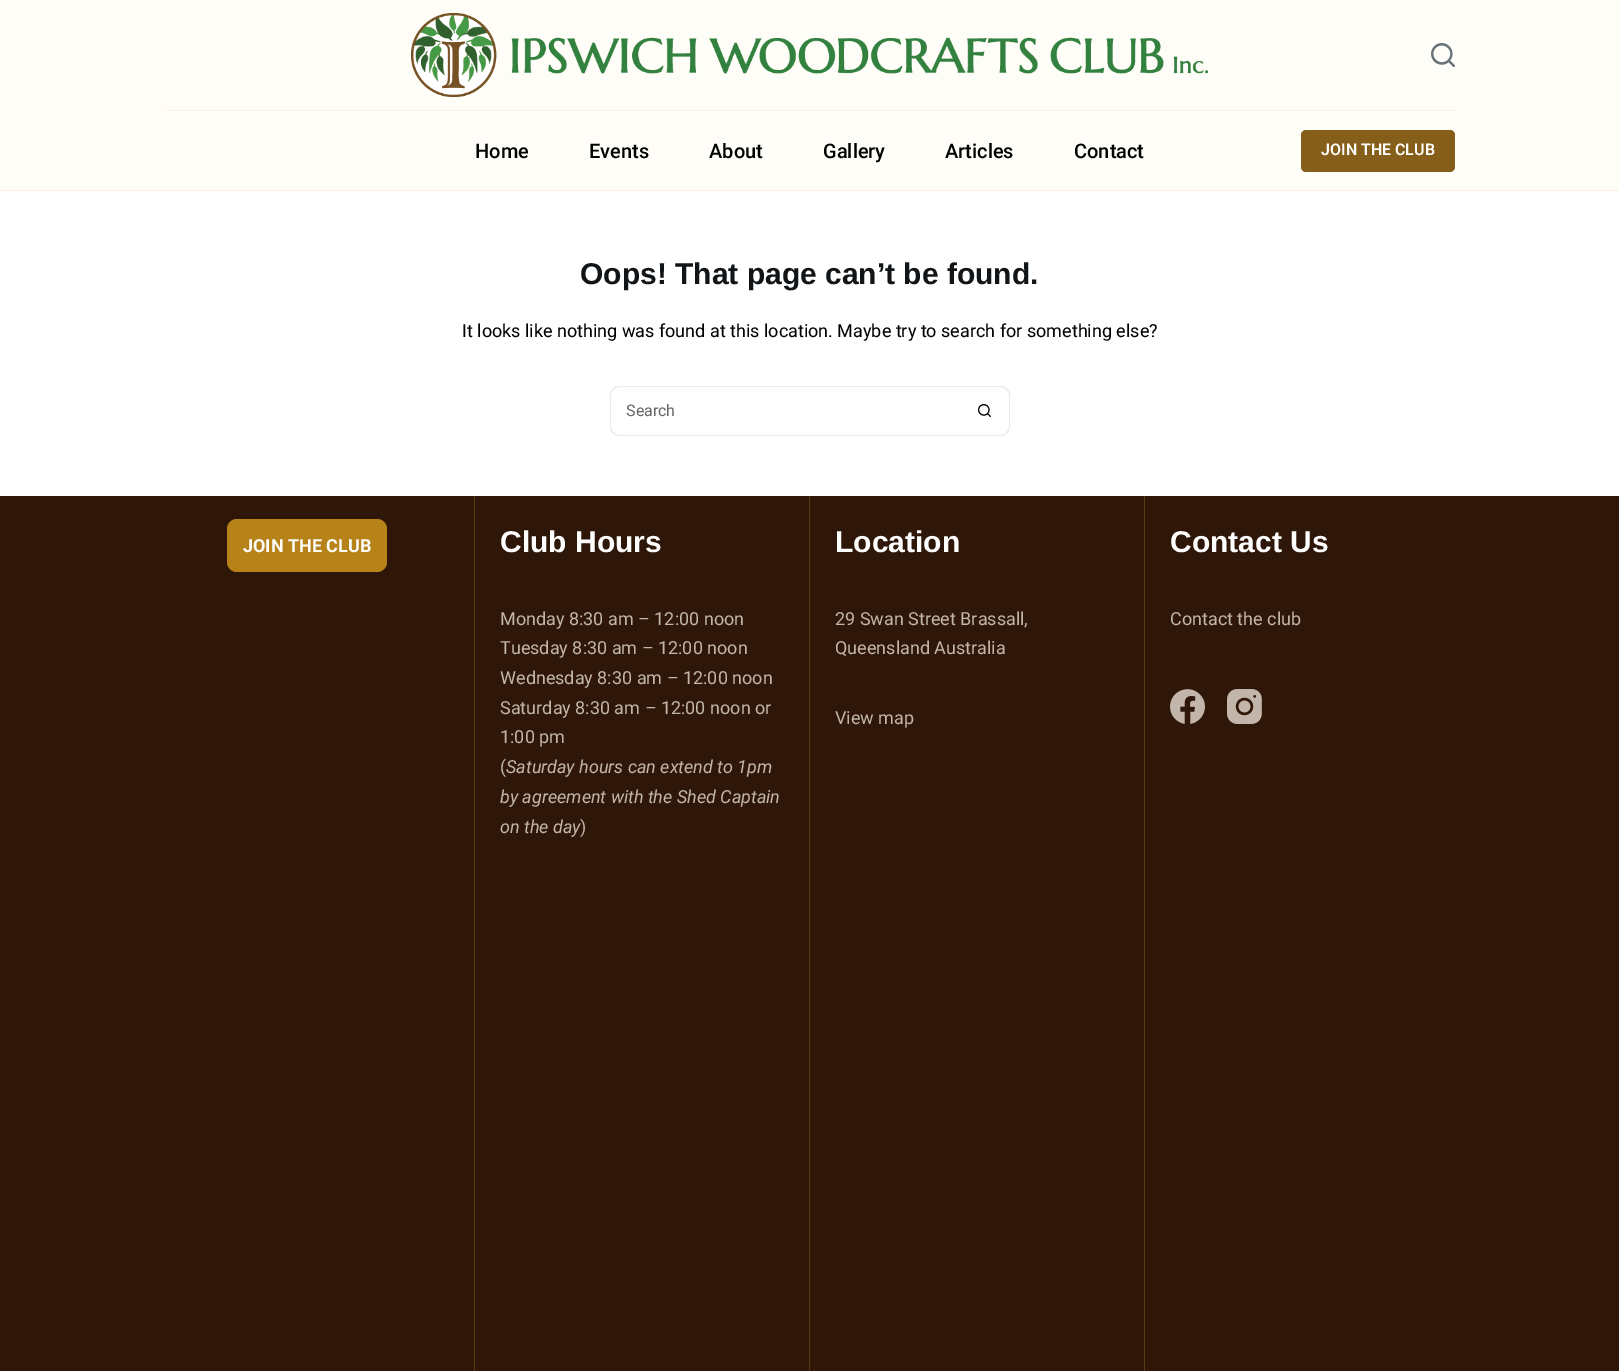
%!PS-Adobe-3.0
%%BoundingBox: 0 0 1619 1371
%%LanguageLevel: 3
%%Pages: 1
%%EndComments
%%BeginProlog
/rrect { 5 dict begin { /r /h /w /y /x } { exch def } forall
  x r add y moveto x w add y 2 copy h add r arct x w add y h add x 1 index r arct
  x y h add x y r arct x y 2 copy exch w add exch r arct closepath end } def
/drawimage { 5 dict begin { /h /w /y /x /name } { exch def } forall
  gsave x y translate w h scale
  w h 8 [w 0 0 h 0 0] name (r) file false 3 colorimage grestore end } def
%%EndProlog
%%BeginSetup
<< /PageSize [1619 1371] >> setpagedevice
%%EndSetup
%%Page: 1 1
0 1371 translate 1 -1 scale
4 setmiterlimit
1 setgray
0 0 1619 1371 rectfill
1 0.992 0.969 setrgbcolor
0 0 1619 190 rectfill
(images/1.raw) 411 13 797 84 drawimage
(images/2.raw) 1431 43 24 24 drawimage
1 0.922 0.859 setrgbcolor
0 190 1619 1 rectfill
0.957 0.953 0.933 setrgbcolor
165 110 1290 1 rectfill
0.522 0.373 0.098 setrgbcolor
1301 130 154 42 5 rrect fill
0.914 0.922 0.925 setrgbcolor
newpath 620 386 moveto 960 386 lineto 960 436 lineto 620 436 lineto 614 436 610 432 610 426 curveto 610 396 lineto 610 390 614 386 620 386 curveto closepath 620 387 moveto 960 387 lineto 960 435 lineto 620 435 lineto 615 435 611 431 611 426 curveto 611 396 lineto 611 391 615 387 620 387 curveto closepath eofill
newpath 960 386 moveto 1000 386 lineto 1006 386 1010 390 1010 396 curveto 1010 426 lineto 1010 432 1006 436 1000 436 curveto 960 436 lineto closepath 960 387 moveto 1000 387 lineto 1005 387 1009 391 1009 396 curveto 1009 426 lineto 1009 431 1005 435 1000 435 curveto 960 435 lineto closepath eofill
(images/3.raw) 978 404 13 13 drawimage
0.18 0.086 0.031 setrgbcolor
0 496 1619 875 rectfill
0.718 0.51 0.094 setrgbcolor
227 519 160 53 10 rrect fill
0.329 0.231 0.055 setrgbcolor
474 496 1 875 rectfill
809 496 1 875 rectfill
1144 496 1 875 rectfill
(images/4.raw) 1170 689 35 35 drawimage
(images/5.raw) 1227 689 35 35 drawimage
/Roboto-Medium [20 0 0 -20 0 0] selectfont
0 setgray
475 158 moveto (Home) show
589 158 moveto (Events) show
709 158 moveto (About) show
823 158 moveto (Gallery) show
945 158 moveto (Articles) show
1074 158 moveto (Contact) show
/Roboto-SemiBold [16 0 0 -16 0 0] selectfont
0.996 setgray
1321 155 moveto (JOIN THE CLUB) show
/LiberationSans-Bold [30 0 0 -30 0 0] selectfont
0.067 0.082 0.094 setrgbcolor
580 284 moveto (Oops! That page can’t be found.) show
/Roboto-Regular [18 0 0 -18 0 0] selectfont
0 setgray
462 337 moveto (It looks like nothing was found at this location. Maybe try to search for something else?) show
/Roboto-Regular [16 0 0 -16 0 0] selectfont
0.4 setgray
626 416 moveto (Search) show
/Roboto-Bold [18 0 0 -18 0 0] selectfont
0.996 setgray
243 552 moveto (JOIN THE CLUB) show
/LiberationSans-Bold [30 0 0 -30 0 0] selectfont
500 552 moveto (Club Hours) show
/Roboto-Regular [18 0 0 -18 0 0] selectfont
0.757 0.714 0.663 setrgbcolor
500 625 moveto (Monday 8:30 am – 12:00 noon) show
500 654 moveto (Tuesday 8:30 am – 12:00 noon) show
500 684 moveto (Wednesday 8:30 am – 12:00 noon) show
500 714 moveto (Saturday 8:30 am – 12:00 noon or) show
500 743 moveto (1:00 pm) show
500 773 moveto (\() show
/Roboto-Italic [18 0 0 -18 0 0] selectfont
506 773 moveto (Saturday hours can extend to 1pm) show
500 803 moveto (by agreement with the Shed Captain) show
500 833 moveto (on the day) show
/Roboto-Regular [18 0 0 -18 0 0] selectfont
580 833 moveto (\)) show
/LiberationSans-Bold [30 0 0 -30 0 0] selectfont
0.996 setgray
835 552 moveto (Location) show
/Roboto-Regular [18 0 0 -18 0 0] selectfont
0.757 0.714 0.663 setrgbcolor
835 625 moveto (29 Swan Street Brassall,) show
835 654 moveto (Queensland Australia) show
835 724 moveto (View map) show
/LiberationSans-Bold [30 0 0 -30 0 0] selectfont
0.996 setgray
1170 552 moveto (Contact Us) show
/Roboto-Regular [18 0 0 -18 0 0] selectfont
0.757 0.714 0.663 setrgbcolor
1170 625 moveto (Contact the club) show
showpage
%%EOF
